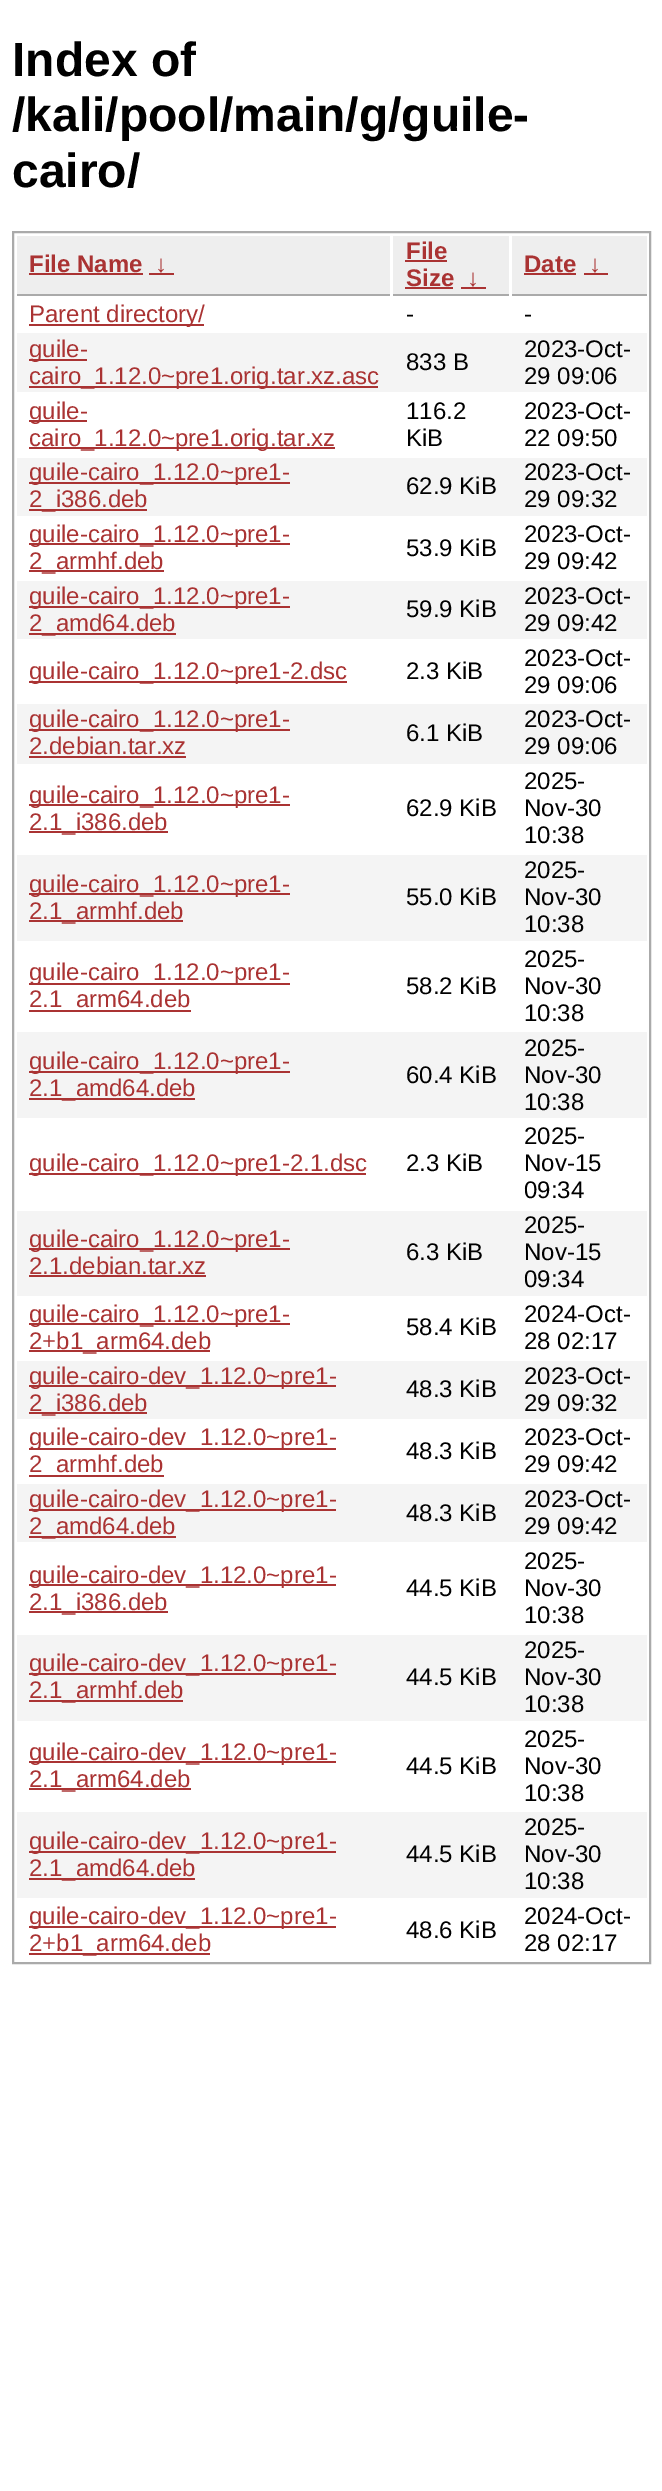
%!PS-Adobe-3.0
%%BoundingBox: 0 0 662 2491
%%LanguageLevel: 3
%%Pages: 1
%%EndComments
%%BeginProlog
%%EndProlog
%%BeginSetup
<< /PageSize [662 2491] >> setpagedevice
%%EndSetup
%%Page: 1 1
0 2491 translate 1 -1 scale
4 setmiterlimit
1 setgray
0 0 662 2491 rectfill
0.667 setgray
2 setlinewidth
13 232 637 1731 rectstroke
0.933 setgray
17 236 373 58 rectfill
0.667 setgray
17 294 373 2 rectfill
0.667 0.2 0.2 setrgbcolor
29 273 114 2 rectfill
149 273 25 2 rectfill
0.933 setgray
393 236 116 58 rectfill
0.667 setgray
393 294 116 2 rectfill
0.667 0.2 0.2 setrgbcolor
405 260 42 2 rectfill
405 287 48 2 rectfill
461 287 25 2 rectfill
0.933 setgray
512 236 135 58 rectfill
0.667 setgray
512 294 135 2 rectfill
0.667 0.2 0.2 setrgbcolor
524 273 52 2 rectfill
584 273 24 2 rectfill
29 324 175 2 rectfill
0.957 setgray
17 333 630 59 rectfill
0.667 0.2 0.2 setrgbcolor
29 359 58 2 rectfill
29 386 349 2 rectfill
29 420 58 2 rectfill
29 447 306 2 rectfill
0.957 setgray
17 458 630 58 rectfill
0.667 0.2 0.2 setrgbcolor
29 482 261 2 rectfill
29 509 118 2 rectfill
29 543 261 2 rectfill
29 570 135 2 rectfill
0.957 setgray
17 581 630 58 rectfill
0.667 0.2 0.2 setrgbcolor
29 606 261 2 rectfill
29 633 147 2 rectfill
29 681 318 2 rectfill
0.957 setgray
17 704 630 60 rectfill
0.667 0.2 0.2 setrgbcolor
29 729 261 2 rectfill
29 756 157 2 rectfill
29 804 261 2 rectfill
29 831 139 2 rectfill
0.957 setgray
17 855 630 86 rectfill
0.667 0.2 0.2 setrgbcolor
29 893 261 2 rectfill
29 920 154 2 rectfill
29 983 261 2 rectfill
29 1010 162 2 rectfill
0.957 setgray
17 1032 630 86 rectfill
0.667 0.2 0.2 setrgbcolor
29 1071 261 2 rectfill
29 1098 166 2 rectfill
29 1173 337 2 rectfill
0.957 setgray
17 1211 630 85 rectfill
0.667 0.2 0.2 setrgbcolor
29 1248 261 2 rectfill
29 1275 177 2 rectfill
29 1323 261 2 rectfill
29 1350 181 2 rectfill
0.957 setgray
17 1361 630 58 rectfill
0.667 0.2 0.2 setrgbcolor
29 1385 307 2 rectfill
29 1412 118 2 rectfill
29 1448 307 2 rectfill
29 1475 135 2 rectfill
0.957 setgray
17 1484 630 58 rectfill
0.667 0.2 0.2 setrgbcolor
29 1509 307 2 rectfill
29 1536 147 2 rectfill
29 1584 307 2 rectfill
29 1611 139 2 rectfill
0.957 setgray
17 1635 630 86 rectfill
0.667 0.2 0.2 setrgbcolor
29 1673 307 2 rectfill
29 1700 154 2 rectfill
29 1761 307 2 rectfill
29 1788 162 2 rectfill
0.957 setgray
17 1812 630 86 rectfill
0.667 0.2 0.2 setrgbcolor
29 1851 307 2 rectfill
29 1878 166 2 rectfill
29 1926 307 2 rectfill
29 1953 181 2 rectfill
/LiberationSans-Bold [48 0 0 -48 0 0] selectfont
0 setgray
12 76 moveto (Index of) show
12 131 moveto (/kali/pool/main/g/guile-) show
12 187 moveto (cairo/) show
/LiberationSans-Bold [24 0 0 -24 0 0] selectfont
0.667 0.2 0.2 setrgbcolor
29 272 moveto (File Name) show
155 272 moveto (↓) show
406 259 moveto (File) show
406 286 moveto (Size) show
467 286 moveto (↓) show
524 272 moveto (Date) show
589 272 moveto (↓) show
/LiberationSans-Regular [24 0 0 -24 0 0] selectfont
29 322 moveto (Parent directory/) show
0 setgray
406 322 moveto (-) show
524 322 moveto (-) show
0.667 0.2 0.2 setrgbcolor
29 357 moveto (guile-) show
29 384 moveto (cairo_1.12.0~pre1.orig.tar.xz.asc) show
0 setgray
406 370 moveto (833 B) show
524 357 moveto (2023-Oct-) show
524 384 moveto (29 09:06) show
0.667 0.2 0.2 setrgbcolor
29 419 moveto (guile-) show
29 446 moveto (cairo_1.12.0~pre1.orig.tar.xz) show
0 setgray
406 419 moveto (116.2) show
406 446 moveto (KiB) show
524 419 moveto (2023-Oct-) show
524 446 moveto (22 09:50) show
0.667 0.2 0.2 setrgbcolor
29 480 moveto (guile-cairo_1.12.0~pre1-) show
29 507 moveto (2_i386.deb) show
0 setgray
406 494 moveto (62.9 KiB) show
524 480 moveto (2023-Oct-) show
524 507 moveto (29 09:32) show
0.667 0.2 0.2 setrgbcolor
29 542 moveto (guile-cairo_1.12.0~pre1-) show
29 569 moveto (2_armhf.deb) show
0 setgray
406 556 moveto (53.9 KiB) show
524 542 moveto (2023-Oct-) show
524 569 moveto (29 09:42) show
0.667 0.2 0.2 setrgbcolor
29 604 moveto (guile-cairo_1.12.0~pre1-) show
29 631 moveto (2_amd64.deb) show
0 setgray
406 617 moveto (59.9 KiB) show
524 604 moveto (2023-Oct-) show
524 631 moveto (29 09:42) show
0.667 0.2 0.2 setrgbcolor
29 679 moveto (guile-cairo_1.12.0~pre1-2.dsc) show
0 setgray
406 679 moveto (2.3 KiB) show
524 666 moveto (2023-Oct-) show
524 693 moveto (29 09:06) show
0.667 0.2 0.2 setrgbcolor
29 727 moveto (guile-cairo_1.12.0~pre1-) show
29 754 moveto (2.debian.tar.xz) show
0 setgray
406 741 moveto (6.1 KiB) show
524 727 moveto (2023-Oct-) show
524 754 moveto (29 09:06) show
0.667 0.2 0.2 setrgbcolor
29 803 moveto (guile-cairo_1.12.0~pre1-) show
29 830 moveto (2.1_i386.deb) show
0 setgray
406 816 moveto (62.9 KiB) show
524 789 moveto (2025-) show
524 816 moveto (Nov-30) show
524 843 moveto (10:38) show
0.667 0.2 0.2 setrgbcolor
29 892 moveto (guile-cairo_1.12.0~pre1-) show
29 919 moveto (2.1_armhf.deb) show
0 setgray
406 905 moveto (55.0 KiB) show
524 878 moveto (2025-) show
524 905 moveto (Nov-30) show
524 932 moveto (10:38) show
0.667 0.2 0.2 setrgbcolor
29 980 moveto (guile-cairo_1.12.0~pre1-) show
29 1007 moveto (2.1_arm64.deb) show
0 setgray
406 994 moveto (58.2 KiB) show
524 967 moveto (2025-) show
524 994 moveto (Nov-30) show
524 1021 moveto (10:38) show
0.667 0.2 0.2 setrgbcolor
29 1069 moveto (guile-cairo_1.12.0~pre1-) show
29 1096 moveto (2.1_amd64.deb) show
0 setgray
406 1083 moveto (60.4 KiB) show
524 1056 moveto (2025-) show
524 1083 moveto (Nov-30) show
524 1110 moveto (10:38) show
0.667 0.2 0.2 setrgbcolor
29 1171 moveto (guile-cairo_1.12.0~pre1-2.1.dsc) show
0 setgray
406 1171 moveto (2.3 KiB) show
524 1144 moveto (2025-) show
524 1171 moveto (Nov-15) show
524 1198 moveto (09:34) show
0.667 0.2 0.2 setrgbcolor
29 1247 moveto (guile-cairo_1.12.0~pre1-) show
29 1274 moveto (2.1.debian.tar.xz) show
0 setgray
406 1260 moveto (6.3 KiB) show
524 1233 moveto (2025-) show
524 1260 moveto (Nov-15) show
524 1287 moveto (09:34) show
0.667 0.2 0.2 setrgbcolor
29 1322 moveto (guile-cairo_1.12.0~pre1-) show
29 1349 moveto (2+b1_arm64.deb) show
0 setgray
406 1335 moveto (58.4 KiB) show
524 1322 moveto (2024-Oct-) show
524 1349 moveto (28 02:17) show
0.667 0.2 0.2 setrgbcolor
29 1384 moveto (guile-cairo-dev_1.12.0~pre1-) show
29 1411 moveto (2_i386.deb) show
0 setgray
406 1397 moveto (48.3 KiB) show
524 1384 moveto (2023-Oct-) show
524 1411 moveto (29 09:32) show
0.667 0.2 0.2 setrgbcolor
29 1445 moveto (guile-cairo-dev_1.12.0~pre1-) show
29 1472 moveto (2_armhf.deb) show
0 setgray
406 1459 moveto (48.3 KiB) show
524 1445 moveto (2023-Oct-) show
524 1472 moveto (29 09:42) show
0.667 0.2 0.2 setrgbcolor
29 1507 moveto (guile-cairo-dev_1.12.0~pre1-) show
29 1534 moveto (2_amd64.deb) show
0 setgray
406 1521 moveto (48.3 KiB) show
524 1507 moveto (2023-Oct-) show
524 1534 moveto (29 09:42) show
0.667 0.2 0.2 setrgbcolor
29 1583 moveto (guile-cairo-dev_1.12.0~pre1-) show
29 1610 moveto (2.1_i386.deb) show
0 setgray
406 1596 moveto (44.5 KiB) show
524 1569 moveto (2025-) show
524 1596 moveto (Nov-30) show
524 1623 moveto (10:38) show
0.667 0.2 0.2 setrgbcolor
29 1671 moveto (guile-cairo-dev_1.12.0~pre1-) show
29 1698 moveto (2.1_armhf.deb) show
0 setgray
406 1685 moveto (44.5 KiB) show
524 1658 moveto (2025-) show
524 1685 moveto (Nov-30) show
524 1712 moveto (10:38) show
0.667 0.2 0.2 setrgbcolor
29 1760 moveto (guile-cairo-dev_1.12.0~pre1-) show
29 1787 moveto (2.1_arm64.deb) show
0 setgray
406 1774 moveto (44.5 KiB) show
524 1747 moveto (2025-) show
524 1774 moveto (Nov-30) show
524 1801 moveto (10:38) show
0.667 0.2 0.2 setrgbcolor
29 1849 moveto (guile-cairo-dev_1.12.0~pre1-) show
29 1876 moveto (2.1_amd64.deb) show
0 setgray
406 1862 moveto (44.5 KiB) show
524 1835 moveto (2025-) show
524 1862 moveto (Nov-30) show
524 1889 moveto (10:38) show
0.667 0.2 0.2 setrgbcolor
29 1924 moveto (guile-cairo-dev_1.12.0~pre1-) show
29 1951 moveto (2+b1_arm64.deb) show
0 setgray
406 1938 moveto (48.6 KiB) show
524 1924 moveto (2024-Oct-) show
524 1951 moveto (28 02:17) show
showpage
%%EOF
